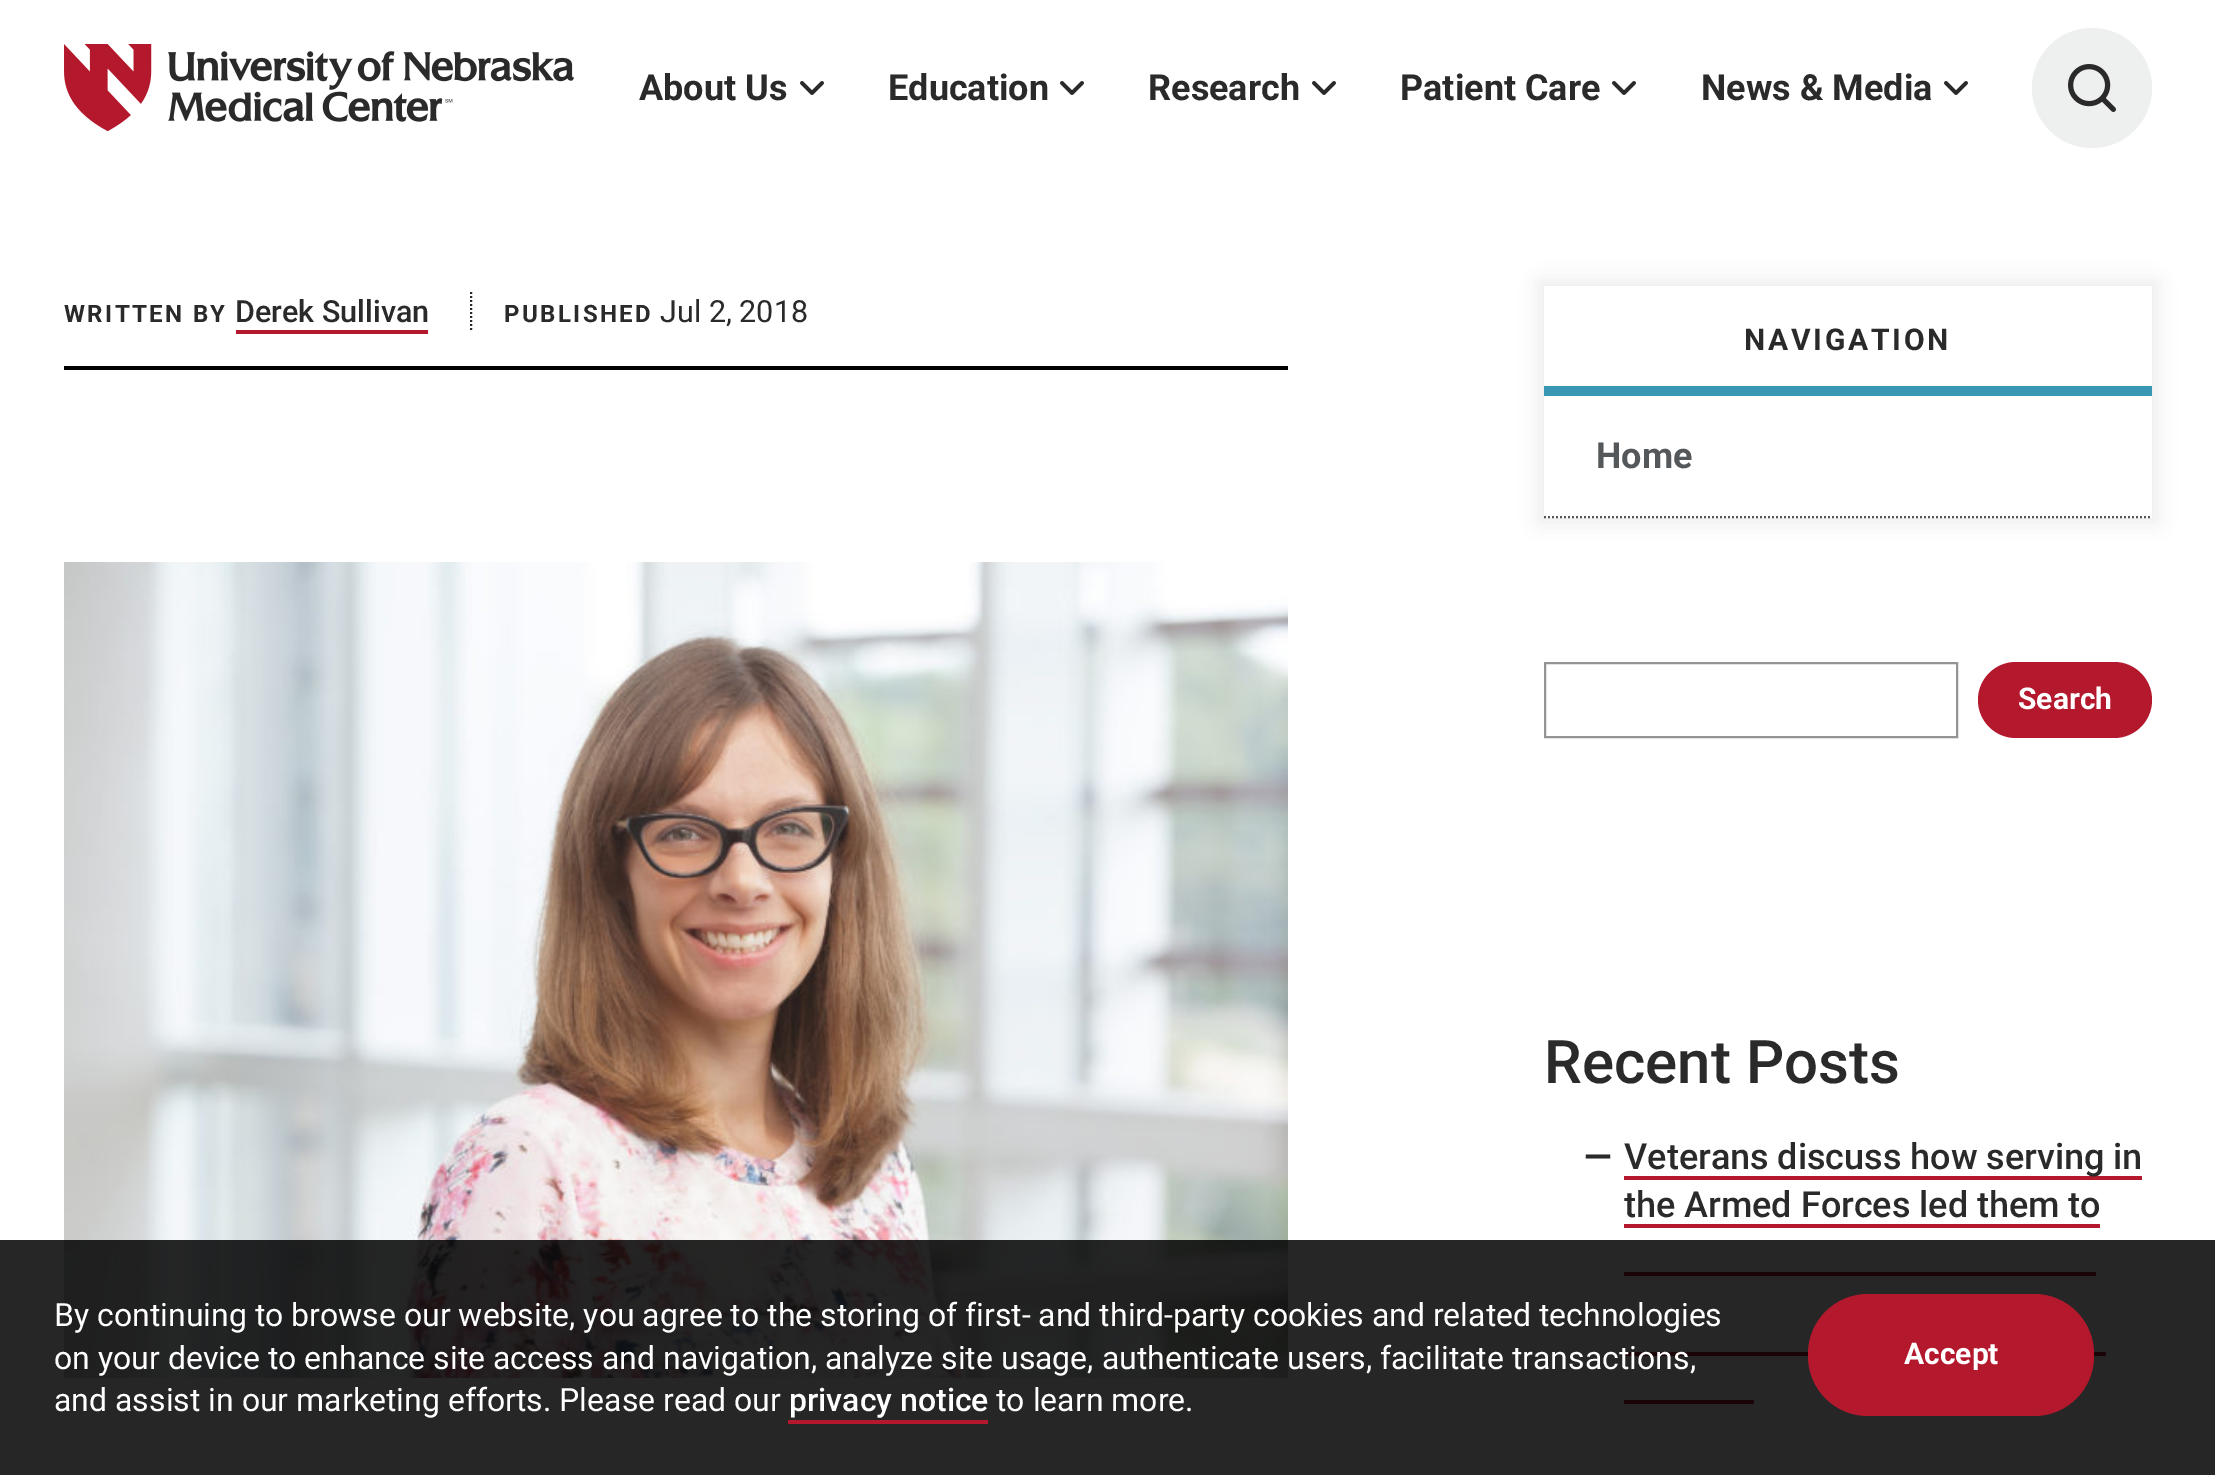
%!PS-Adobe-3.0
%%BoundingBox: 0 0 2215 1475
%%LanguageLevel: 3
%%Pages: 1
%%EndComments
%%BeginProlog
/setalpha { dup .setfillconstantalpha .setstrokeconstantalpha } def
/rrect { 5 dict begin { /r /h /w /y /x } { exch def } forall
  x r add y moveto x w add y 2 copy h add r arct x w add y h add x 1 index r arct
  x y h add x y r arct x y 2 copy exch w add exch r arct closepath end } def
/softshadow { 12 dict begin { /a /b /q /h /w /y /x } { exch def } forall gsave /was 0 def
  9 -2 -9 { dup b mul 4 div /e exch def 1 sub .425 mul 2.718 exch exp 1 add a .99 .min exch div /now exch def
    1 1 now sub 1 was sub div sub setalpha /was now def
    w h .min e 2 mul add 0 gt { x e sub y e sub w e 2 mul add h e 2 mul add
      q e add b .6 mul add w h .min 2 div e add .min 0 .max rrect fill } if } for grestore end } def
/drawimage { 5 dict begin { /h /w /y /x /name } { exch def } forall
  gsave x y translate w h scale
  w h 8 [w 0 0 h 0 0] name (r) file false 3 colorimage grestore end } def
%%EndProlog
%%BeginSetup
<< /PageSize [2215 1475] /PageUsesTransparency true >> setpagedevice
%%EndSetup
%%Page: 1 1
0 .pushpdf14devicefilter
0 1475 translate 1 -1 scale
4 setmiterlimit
1 setgray
0 0 2215 1475 rectfill
(images/1.raw) 64 44 511 88 drawimage
(images/2.raw) 800 81 24 14 drawimage
(images/2.raw) 1060 81 24 14 drawimage
(images/2.raw) 1312 81 24 14 drawimage
(images/2.raw) 1612 81 24 14 drawimage
(images/2.raw) 1944 81 24 14 drawimage
0.933 0.937 0.937 setrgbcolor
newpath 2092 88 60 0 360 arc closepath fill
(images/3.raw) 2068 64 48 48 drawimage
0 setgray
64 366 1224 4 rectfill
0.706 0.094 0.176 setrgbcolor
236 330 192 4 rectfill
0.165 setgray
2 setlinewidth
[2 2] 0 setdash
newpath 471 292 moveto 471 332 lineto stroke
(images/4.raw) 64 562 1224 816 drawimage
gsave
newpath 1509 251 moveto 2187 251 lineto 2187 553 lineto 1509 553 lineto closepath 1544 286 moveto 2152 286 lineto 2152 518 lineto 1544 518 lineto closepath eoclip newpath
0 setgray
1540 282 616 240 0 10 0.08 softshadow
grestore
0.227 0.592 0.706 setrgbcolor
1544 386 608 10 rectfill
0.329 0.345 0.353 setrgbcolor
newpath 1544 517 moveto 2152 517 lineto stroke
0.58 setgray
[] 0 setdash
1545 663 412 74 rectstroke
0.706 0.094 0.176 setrgbcolor
1978 662 174 76 38 rrect fill
1624 1176 518 4 rectfill
1624 1224 476 4 rectfill
1624 1272 472 4 rectfill
1624 1352 482 4 rectfill
1624 1400 130 4 rectfill
0.85 setalpha
0 setgray
0 1240 2215 235 rectfill
1 setalpha
0.706 0.094 0.176 setrgbcolor
788 1420 200 4 rectfill
1808 1294 286 122 60 rrect fill
/Roboto-Bold [36 0 0 -36 0 0] selectfont
0.165 setgray
639 100 moveto (About Us) show
888 100 moveto (Education) show
1148 100 moveto (Research) show
1400 100 moveto (Patient Care) show
1701 100 moveto (News & Media) show
/Roboto-Bold [24 0 0 -24 0 0] selectfont
64 322 moveto 2.4 0 (WRITTEN BY) ashow
/Roboto-Medium [30.5 0 0 -30.5 0 0] selectfont
235 322 moveto (Derek Sullivan) show
/Roboto-Bold [24 0 0 -24 0 0] selectfont
504 322 moveto 2.4 0 (PUBLISHED) ashow
/Roboto-Regular [30.5 0 0 -30.5 0 0] selectfont
660 322 moveto (Jul 2, 2018) show
/Roboto-Bold [30 0 0 -30 0 0] selectfont
1744 350 moveto 2.75 0 (NAVIGATION) ashow
/Roboto-Bold [36 0 0 -36 0 0] selectfont
0.329 0.345 0.353 setrgbcolor
1596 468 moveto (Home) show
/Roboto-Bold [30 0 0 -30 0 0] selectfont
1 setgray
2018 709 moveto (Search) show
/Roboto-Medium [60 0 0 -60 0 0] selectfont
0.165 setgray
1544 1083 moveto (Recent Posts) show
/Roboto-Bold [36 0 0 -36 0 0] selectfont
1584 1169 moveto (—) show
/Roboto-Medium [36 0 0 -36 0 0] selectfont
1624 1169 moveto (Veterans discuss how serving in) show
1624 1217 moveto (the Armed Forces led them to) show
/Roboto-Regular [32 0 0 -32 0 0] selectfont
1 setgray
54 1326 moveto (By continuing to browse our website, you agree to the storing of first- and third-party cookies and related technologies) show
54 1369 moveto (on your device to enhance site access and navigation, analyze site usage, authenticate users, facilitate transactions,) show
54 1411 moveto (and assist in our marketing efforts. Please read our) show
/Roboto-Medium [32 0 0 -32 0 0] selectfont
789 1411 moveto (privacy notice) show
/Roboto-Regular [32 0 0 -32 0 0] selectfont
996 1411 moveto (to learn more.) show
/Roboto-Bold [30 0 0 -30 0 0] selectfont
1904 1364 moveto (Accept) show
.poppdf14devicefilter showpage
%%EOF
